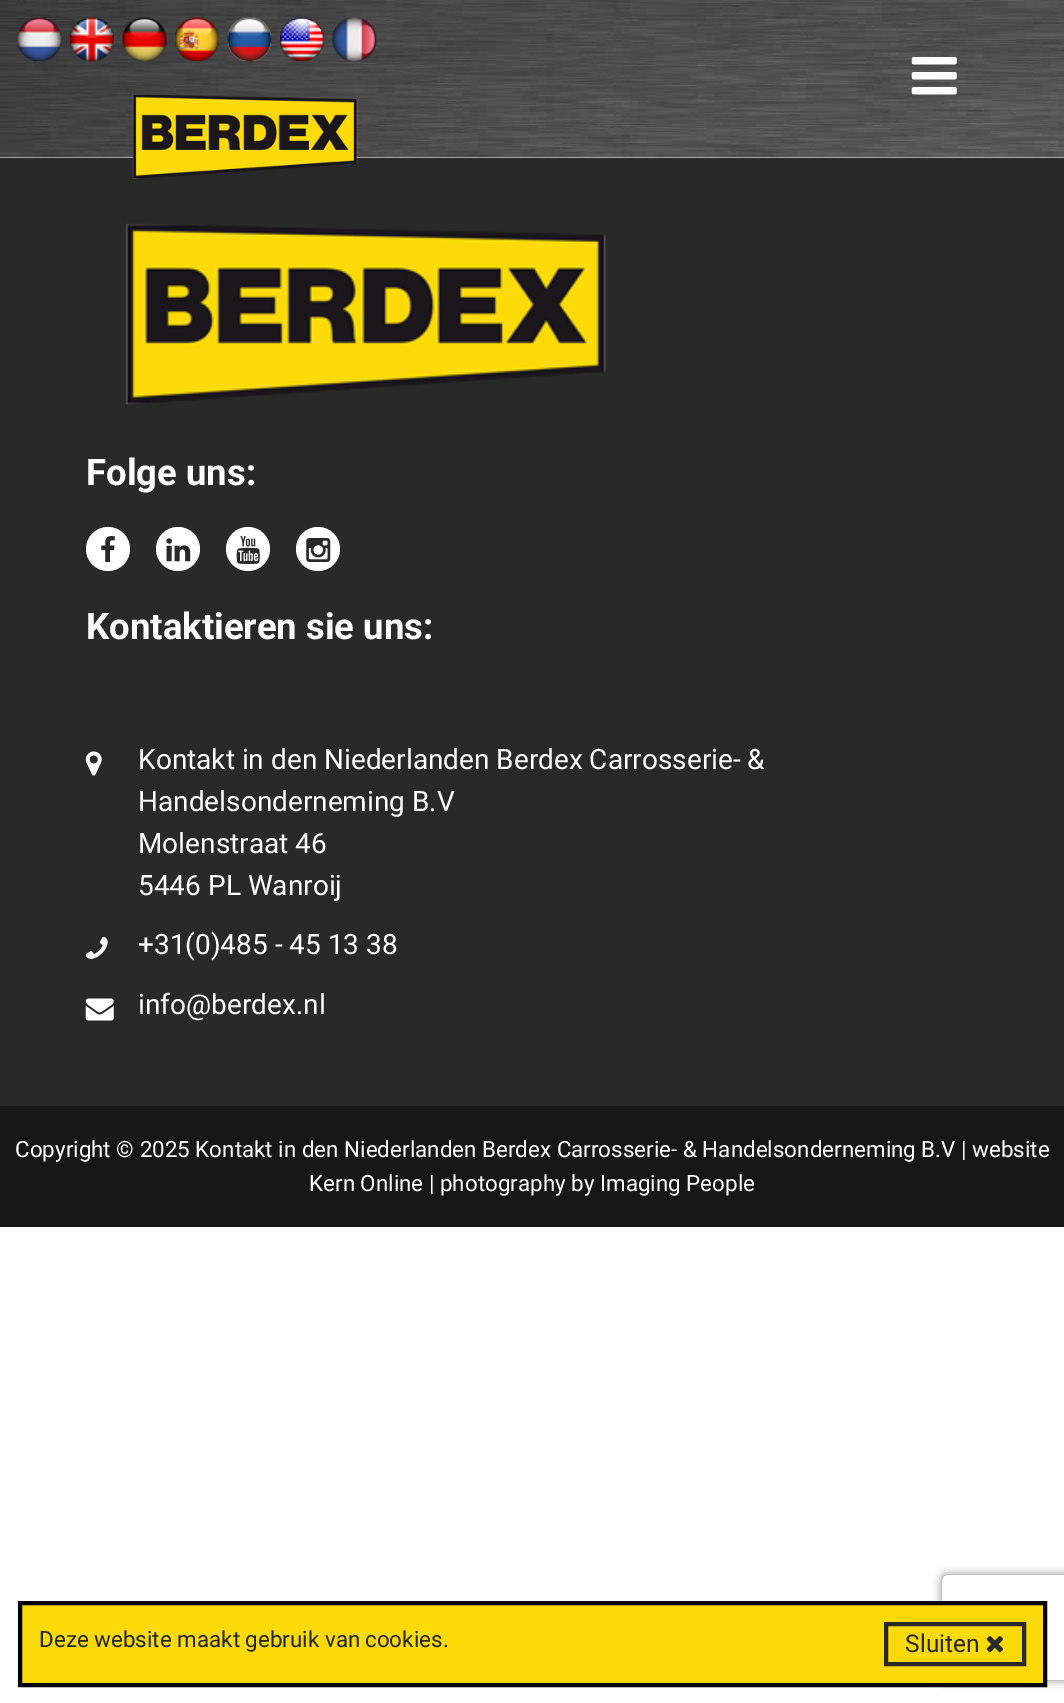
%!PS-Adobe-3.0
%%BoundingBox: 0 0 1064 1703
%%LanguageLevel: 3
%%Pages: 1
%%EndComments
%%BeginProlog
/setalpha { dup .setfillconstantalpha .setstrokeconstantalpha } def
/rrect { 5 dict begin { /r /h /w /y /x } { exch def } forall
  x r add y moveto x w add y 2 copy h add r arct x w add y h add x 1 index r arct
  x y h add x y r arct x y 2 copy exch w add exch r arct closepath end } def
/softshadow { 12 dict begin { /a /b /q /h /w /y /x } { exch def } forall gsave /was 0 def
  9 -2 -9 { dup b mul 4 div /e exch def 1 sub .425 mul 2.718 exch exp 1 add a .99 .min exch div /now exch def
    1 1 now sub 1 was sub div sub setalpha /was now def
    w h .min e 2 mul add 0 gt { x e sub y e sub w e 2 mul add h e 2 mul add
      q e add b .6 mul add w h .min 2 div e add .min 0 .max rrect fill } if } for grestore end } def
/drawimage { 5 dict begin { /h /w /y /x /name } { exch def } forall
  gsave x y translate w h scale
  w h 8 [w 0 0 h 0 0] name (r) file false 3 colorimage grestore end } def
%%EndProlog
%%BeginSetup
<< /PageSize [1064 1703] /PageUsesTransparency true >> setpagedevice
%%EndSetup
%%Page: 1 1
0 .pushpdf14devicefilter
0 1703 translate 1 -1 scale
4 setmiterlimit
1 setgray
0 0 1064 1703 rectfill
(images/1.raw) 0 0 1064 158 drawimage
(images/2.raw) 17 17 45 45 drawimage
(images/3.raw) 70 17 44 45 drawimage
(images/4.raw) 122 17 45 45 drawimage
(images/5.raw) 175 17 44 45 drawimage
(images/6.raw) 227 17 45 45 drawimage
(images/7.raw) 280 17 44 45 drawimage
(images/8.raw) 332 17 45 45 drawimage
(images/9.raw) 911 57 46 38 drawimage
0.161 setgray
0 158 1064 948 rectfill
(images/10.raw) 132 94 226 85 drawimage
(images/11.raw) 125 223 481 182 drawimage
1 setgray
newpath 108 549 22 0 360 arc closepath fill
(images/12.raw) 101 536 14 26 drawimage
newpath 178 549 22 0 360 arc closepath fill
(images/13.raw) 166 538 25 24 drawimage
newpath 248 549 22 0 360 arc closepath fill
(images/14.raw) 236 536 24 28 drawimage
newpath 318 549 22 0 360 arc closepath fill
(images/15.raw) 306 538 25 24 drawimage
(images/16.raw) 85 751 17 25 drawimage
(images/17.raw) 85 937 23 22 drawimage
(images/18.raw) 85 998 29 23 drawimage
0.09 setgray
0 1106 1064 121 rectfill
gsave
newpath 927 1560 moveto 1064 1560 lineto 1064 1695 lineto 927 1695 lineto closepath 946 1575 moveto 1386 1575 lineto 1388 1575 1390 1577 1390 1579 curveto 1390 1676 lineto 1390 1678 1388 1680 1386 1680 curveto 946 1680 lineto 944 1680 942 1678 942 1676 curveto 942 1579 lineto 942 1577 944 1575 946 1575 curveto closepath eoclip newpath
0.502 setgray
942 1575 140 105 4 4.5 1 softshadow
grestore
0.988 0.855 0.027 setrgbcolor
newpath 20 1603 moveto 1045 1603 lineto 1045 1685 lineto 20 1685 lineto closepath gsave fill grestore
0 setgray
4 setlinewidth
stroke
0.161 setgray
886 1624 138 40 rectstroke
(images/19.raw) 986 1636 17 17 drawimage
/Roboto-Bold [36.5 0 0 -36.5 0 0] selectfont
1 setgray
86 485 moveto (Folge uns:) show
86 639 moveto (Kontaktieren sie uns:) show
/Roboto-Regular [28 0 0 -28 0 0] selectfont
138 769 moveto (Kontakt in den Niederlanden Berdex Carrosserie- &) show
138 811 moveto (Handelsonderneming B.V) show
138 853 moveto (Molenstraat 46) show
138 895 moveto (5446 PL Wanroij) show
138 954 moveto (+31\(0\)485 - 45 13 38) show
138 1014 moveto (info@berdex.nl) show
/Roboto-Regular [22.4 0 0 -22.4 0 0] selectfont
15 1157 moveto (Copyright © 2025 Kontakt in den Niederlanden Berdex Carrosserie- & Handelsonderneming B.V | website) show
309 1191 moveto (Kern Online | photography by Imaging People) show
0.129 0.145 0.161 setrgbcolor
39 1647 moveto (Deze website maakt gebruik van) show
0.161 setgray
365 1647 moveto (cookies) show
0.129 0.145 0.161 setrgbcolor
443 1647 moveto (.) show
/Roboto-Regular [24.5 0 0 -24.5 0 0] selectfont
0.161 setgray
905 1652 moveto (Sluiten) show
.poppdf14devicefilter showpage
%%EOF
